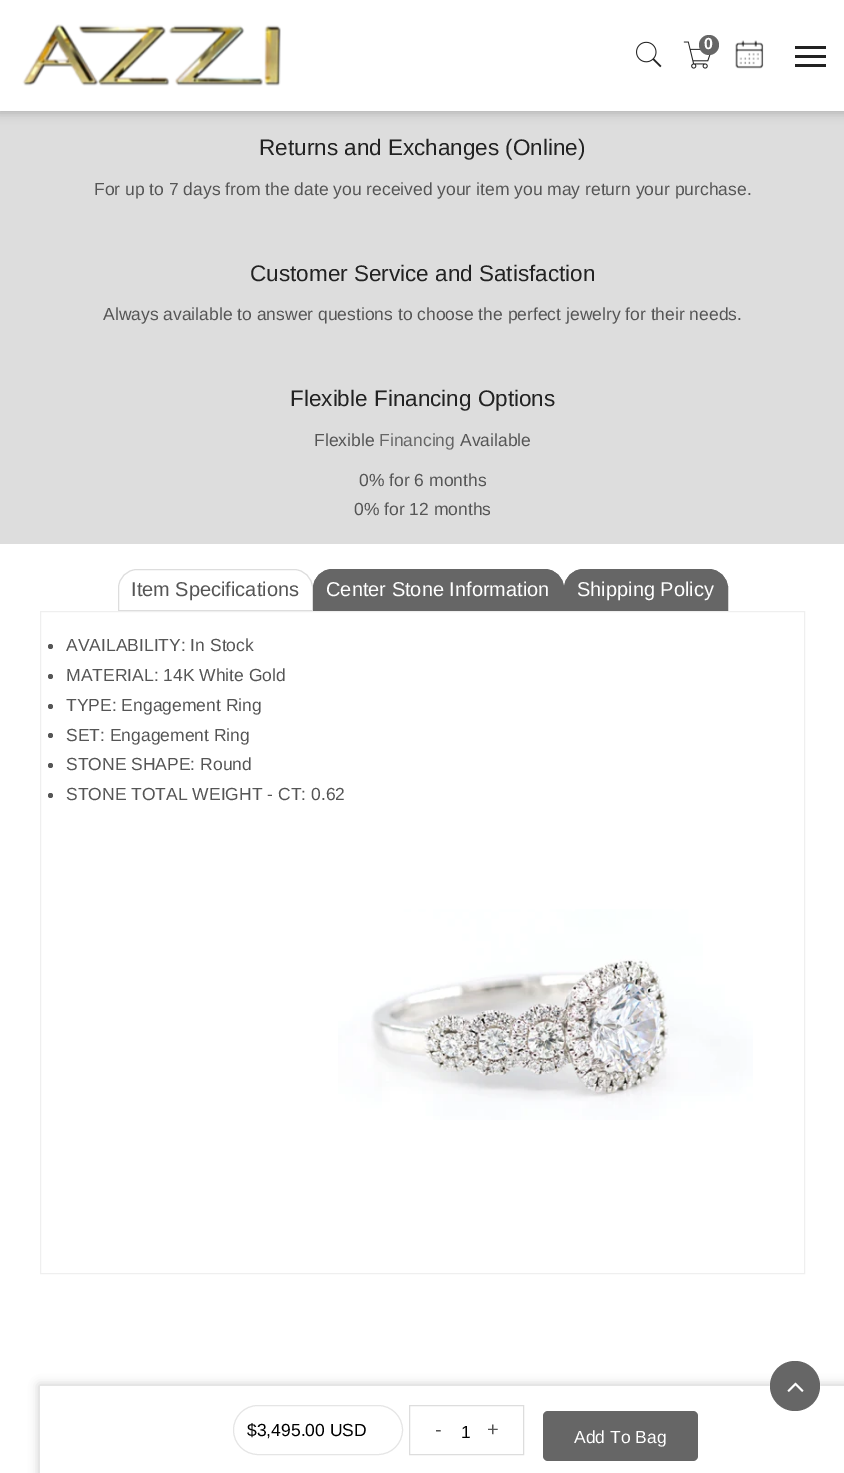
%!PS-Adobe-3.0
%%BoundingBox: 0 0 844 1473
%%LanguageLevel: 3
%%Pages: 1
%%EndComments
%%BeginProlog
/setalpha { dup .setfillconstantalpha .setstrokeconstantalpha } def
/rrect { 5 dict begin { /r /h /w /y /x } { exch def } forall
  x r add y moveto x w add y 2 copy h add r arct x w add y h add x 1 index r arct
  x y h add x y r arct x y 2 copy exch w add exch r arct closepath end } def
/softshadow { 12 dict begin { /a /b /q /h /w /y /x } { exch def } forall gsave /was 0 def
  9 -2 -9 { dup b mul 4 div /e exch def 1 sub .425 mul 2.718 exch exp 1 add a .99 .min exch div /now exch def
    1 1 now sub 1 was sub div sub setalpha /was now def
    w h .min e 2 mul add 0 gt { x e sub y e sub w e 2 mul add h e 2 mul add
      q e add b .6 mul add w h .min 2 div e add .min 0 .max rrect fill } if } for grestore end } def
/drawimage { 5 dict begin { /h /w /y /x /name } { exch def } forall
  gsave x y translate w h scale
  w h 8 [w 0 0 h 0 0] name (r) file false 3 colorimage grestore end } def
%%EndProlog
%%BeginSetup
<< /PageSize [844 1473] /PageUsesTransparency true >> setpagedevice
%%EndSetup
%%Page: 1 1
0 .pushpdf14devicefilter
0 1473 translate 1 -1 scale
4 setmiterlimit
1 setgray
0 0 844 1473 rectfill
0.867 setgray
0 111 844 433 rectfill
0 setgray
-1 -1 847 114 0 5 0.2 softshadow
1 setgray
0 0 844 111 rectfill
(images/1.raw) 22 24 259 62 drawimage
(images/2.raw) 636 41 26 27 drawimage
(images/3.raw) 683 41 28 28 drawimage
0.4 setgray
newpath 709 45 10 0 360 arc closepath fill
(images/4.raw) 735 40 29 29 drawimage
0.133 setgray
795 46 31 3 rectfill
795 55 31 3 rectfill
795 64 31 3 rectfill
0.867 setgray
newpath 137 569.5 moveto 294 569.5 lineto 304 569.5 312.5 578 312.5 588 curveto 312.5 610.5 lineto 118.5 610.5 lineto 118.5 588 lineto 118.5 578 127 569.5 137 569.5 curveto closepath stroke
0.4 setgray
newpath 332 569.5 moveto 545 569.5 lineto 555 569.5 563.5 578 563.5 588 curveto 563.5 610.5 lineto 313.5 610.5 lineto 313.5 588 lineto 313.5 578 322 569.5 332 569.5 curveto closepath gsave fill grestore
stroke
newpath 583 569.5 moveto 709 569.5 lineto 719 569.5 727.5 578 727.5 588 curveto 727.5 610.5 lineto 564.5 610.5 lineto 564.5 588 lineto 564.5 578 573 569.5 583 569.5 curveto closepath gsave fill grestore
stroke
0.937 setgray
40.5 611.5 764 662 rectstroke
0.333 setgray
newpath 50.5 646.5 2.5 0 360 arc closepath fill
newpath 50.5 676.5 2.5 0 360 arc closepath fill
newpath 50.5 706.5 2.5 0 360 arc closepath fill
newpath 50.5 735.5 2.5 0 360 arc closepath fill
newpath 50.5 765.5 2.5 0 360 arc closepath fill
newpath 50.5 795.5 2.5 0 360 arc closepath fill
(images/5.raw) 338 909 415 211 drawimage
gsave
newpath 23 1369 moveto 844 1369 lineto 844 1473 lineto 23 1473 lineto closepath 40 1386 moveto 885 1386 lineto 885 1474 lineto 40 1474 lineto closepath eoclip newpath
0 setgray
39 1385 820 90 0 5 0.2 softshadow
grestore
0.95 setalpha
1 setgray
40 1386 804 1 rectfill
1 setalpha
0.898 setgray
233.5 1405.5 169 49 24.5 rrect stroke
0.867 setgray
409.5 1405.5 114 49 rectstroke
0.4 setgray
543 1411 155 50 5 rrect fill
1 setgray
770 1361 50 50 25 0.5 0.5 softshadow
0.4 setgray
newpath 795 1386 25 0 360 arc closepath fill
(images/6.raw) 787 1382 17 10 drawimage
/LiberationSans-Bold [16 0 0 -16 0 0] selectfont
1 setgray
704 49 moveto (0) show
/LiberationSans-Regular [22.5 0 0 -22.5 0 0] selectfont
0.133 setgray
259 155 moveto (Returns and Exchanges \(Online\)) show
/LiberationSans-Regular [17.5 0 0 -17.5 0 0] selectfont
0.333 setgray
94 195 moveto (For up to 7 days from the date you received your item you may return your purchase.) show
/LiberationSans-Regular [22.5 0 0 -22.5 0 0] selectfont
0.133 setgray
250 281 moveto (Customer Service and Satisfaction) show
/LiberationSans-Regular [17.5 0 0 -17.5 0 0] selectfont
0.333 setgray
103 320 moveto (Always available to answer questions to choose the perfect jewelry for their needs.) show
/LiberationSans-Regular [22.5 0 0 -22.5 0 0] selectfont
0.133 setgray
290 406 moveto (Flexible Financing Options) show
/LiberationSans-Regular [17.5 0 0 -17.5 0 0] selectfont
0.333 setgray
314 446 moveto (Flexible) show
0.4 setgray
379 446 moveto (Financing) show
0.333 setgray
460 446 moveto (Available) show
359 486 moveto (0% for 6 months) show
354 515 moveto (0% for 12 months) show
/LiberationSans-Regular [20 0 0 -20 0 0] selectfont
131 596 moveto (Item Specifications) show
1 setgray
326 596 moveto (Center Stone Information) show
577 596 moveto (Shipping Policy) show
/LiberationSans-Regular [17.5 0 0 -17.5 0 0] selectfont
0.333 setgray
66 651 moveto (AVAILABILITY: In Stock) show
66 681 moveto (MATERIAL: 14K White Gold) show
66 711 moveto (TYPE: Engagement Ring) show
66 741 moveto (SET: Engagement Ring) show
66 770 moveto (STONE SHAPE: Round) show
66 800 moveto (STONE TOTAL WEIGHT - CT: 0.62) show
0 setgray
247 1436 moveto ($3,495.00 USD) show
/LiberationSans-Regular [20 0 0 -20 0 0] selectfont
0.333 setgray
435 1436 moveto (-) show
/LiberationSans-Regular [17.5 0 0 -17.5 0 0] selectfont
0 setgray
461 1438 moveto (1) show
/LiberationSans-Regular [20 0 0 -20 0 0] selectfont
0.333 setgray
487 1436 moveto (+) show
/LiberationSans-Regular [17.5 0 0 -17.5 0 0] selectfont
1 setgray
574 1443 moveto (Add To Bag) show
.poppdf14devicefilter showpage
%%EOF
